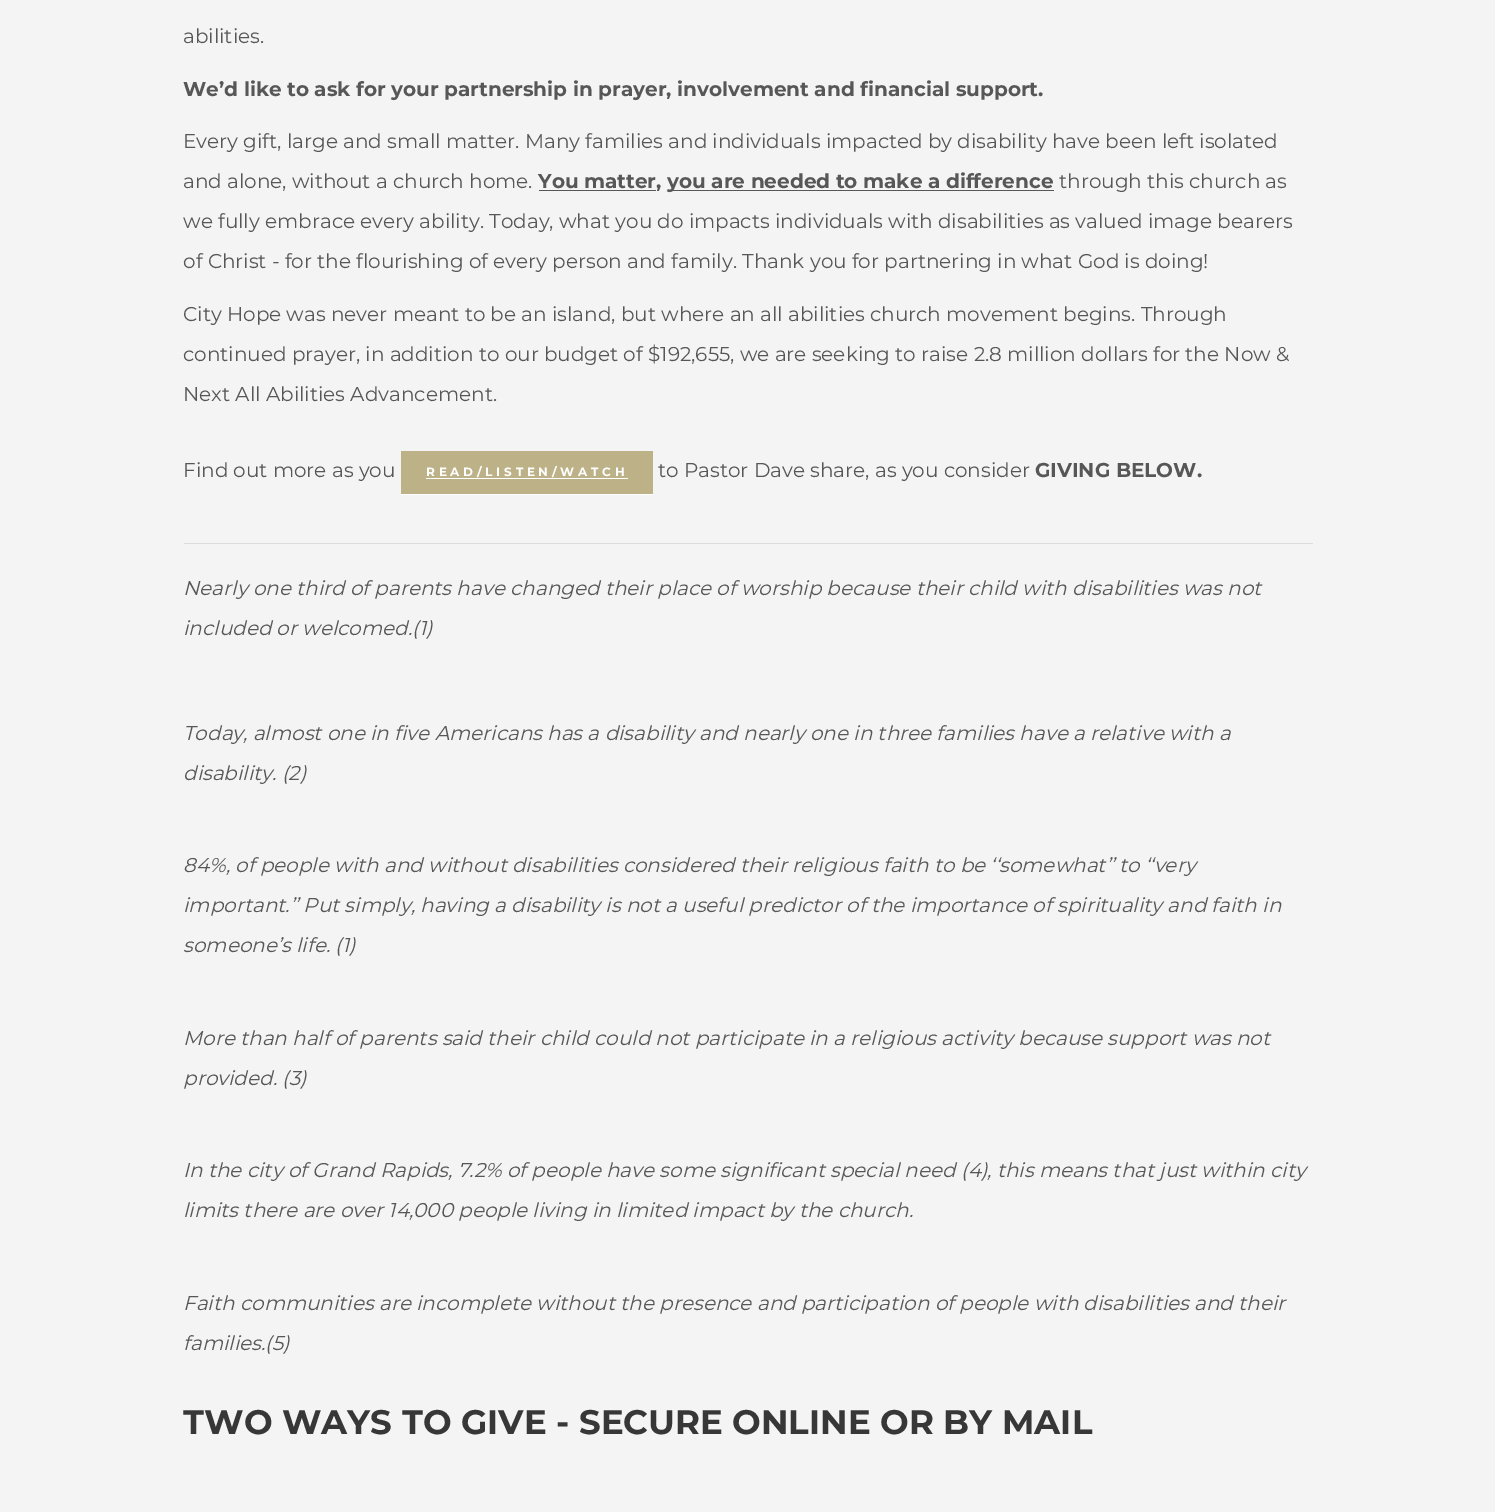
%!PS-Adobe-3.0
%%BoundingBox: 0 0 1495 1512
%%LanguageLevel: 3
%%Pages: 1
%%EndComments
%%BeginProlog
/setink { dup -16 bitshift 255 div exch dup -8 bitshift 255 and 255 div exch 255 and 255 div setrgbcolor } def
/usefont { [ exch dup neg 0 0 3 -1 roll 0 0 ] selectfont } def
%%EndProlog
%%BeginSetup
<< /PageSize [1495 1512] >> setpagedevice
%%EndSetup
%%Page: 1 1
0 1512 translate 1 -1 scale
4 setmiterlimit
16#F4F4F4 setink
0 0 1495 1512 rectfill
/Montserrat-Regular 20 usefont
16#575757 setink
183 43 moveto (abilities.) show
/Montserrat-Bold 20 usefont
183 96 moveto (We’d like to ask for your partnership in prayer, involvement and financial support.) show
/Montserrat-Regular 20 usefont
183 148 moveto (Every gift, large and small matter. Many families and individuals impacted by disability have been left isolated) show
183 188 moveto (and alone, without a church home.) show
539 190 117 1 rectfill
/Montserrat-Bold 20 usefont
538 188 moveto (You matter,) show
668 190 386 1 rectfill
667 188 moveto (you are needed to make a difference) show
/Montserrat-Regular 20 usefont
[
    [(through this church as) 1059 188]
    [(we fully embrace every ability. Today, what you do impacts individuals with disabilities as valued image bearers) 183 228]
    [(of Christ - for the flourishing of every person and family. Thank you for partnering in what God is doing!) 183 268]
    [(City Hope was never meant to be an island, but where an all abilities church movement begins. Through) 183 321]
    [(continued prayer, in addition to our budget of $192,655, we are seeking to raise 2.8 million dollars for the Now &) 183 361]
    [(Next All Abilities Advancement.) 183 401]
    [(Find out more as you) 183 477]
] { aload pop moveto show } forall
16#BDB287 setink
401 451 252 43 rectfill
/Montserrat-Bold 12 usefont
16#FFFFFF setink
426 476 moveto 3.75 0 (READ/LISTEN/WATCH) ashow
426 478 202 1 rectfill
400 494 253 1 rectfill
/Montserrat-Regular 20 usefont
16#575757 setink
658 477 moveto (to Pastor Dave share, as you consider) show
/Montserrat-Bold 20 usefont
1035 477 moveto (GIVING BELOW.) show
16#DCDCDC setink
184 543 1129 1 rectfill
/Montserrat-Italic 20 usefont
16#575757 setink
[
    [(Nearly one third of parents have changed their place of worship because their child with disabilities was not) 183 595]
    [(included or welcomed.\(1\)) 183 635]
    [(Today, almost one in five Americans has a disability and nearly one in three families have a relative with a) 183 740]
    [(disability. \(2\)) 183 780]
    [(84%, of people with and without disabilities considered their religious faith to be ‘‘somewhat’’ to ‘‘very) 183 872]
    [(important.’’ Put simply, having a disability is not a useful predictor of the importance of spirituality and faith in) 183 912]
    [(someone’s life. \(1\)) 183 952]
    [(More than half of parents said their child could not participate in a religious activity because support was not) 183 1045]
    [(provided. \(3\)) 183 1085]
    [(In the city of Grand Rapids, 7.2% of people have some significant special need \(4\), this means that just within city) 183 1177]
    [(limits there are over 14,000 people living in limited impact by the church.) 183 1217]
    [(Faith communities are incomplete without the presence and participation of people with disabilities and their) 183 1310]
    [(families.\(5\)) 183 1350]
] { aload pop moveto show } forall
/Montserrat-Bold 34 usefont
16#373737 setink
183 1434 moveto (TWO WAYS TO GIVE - SECURE ONLINE OR BY MAIL) show
showpage
%%EOF
